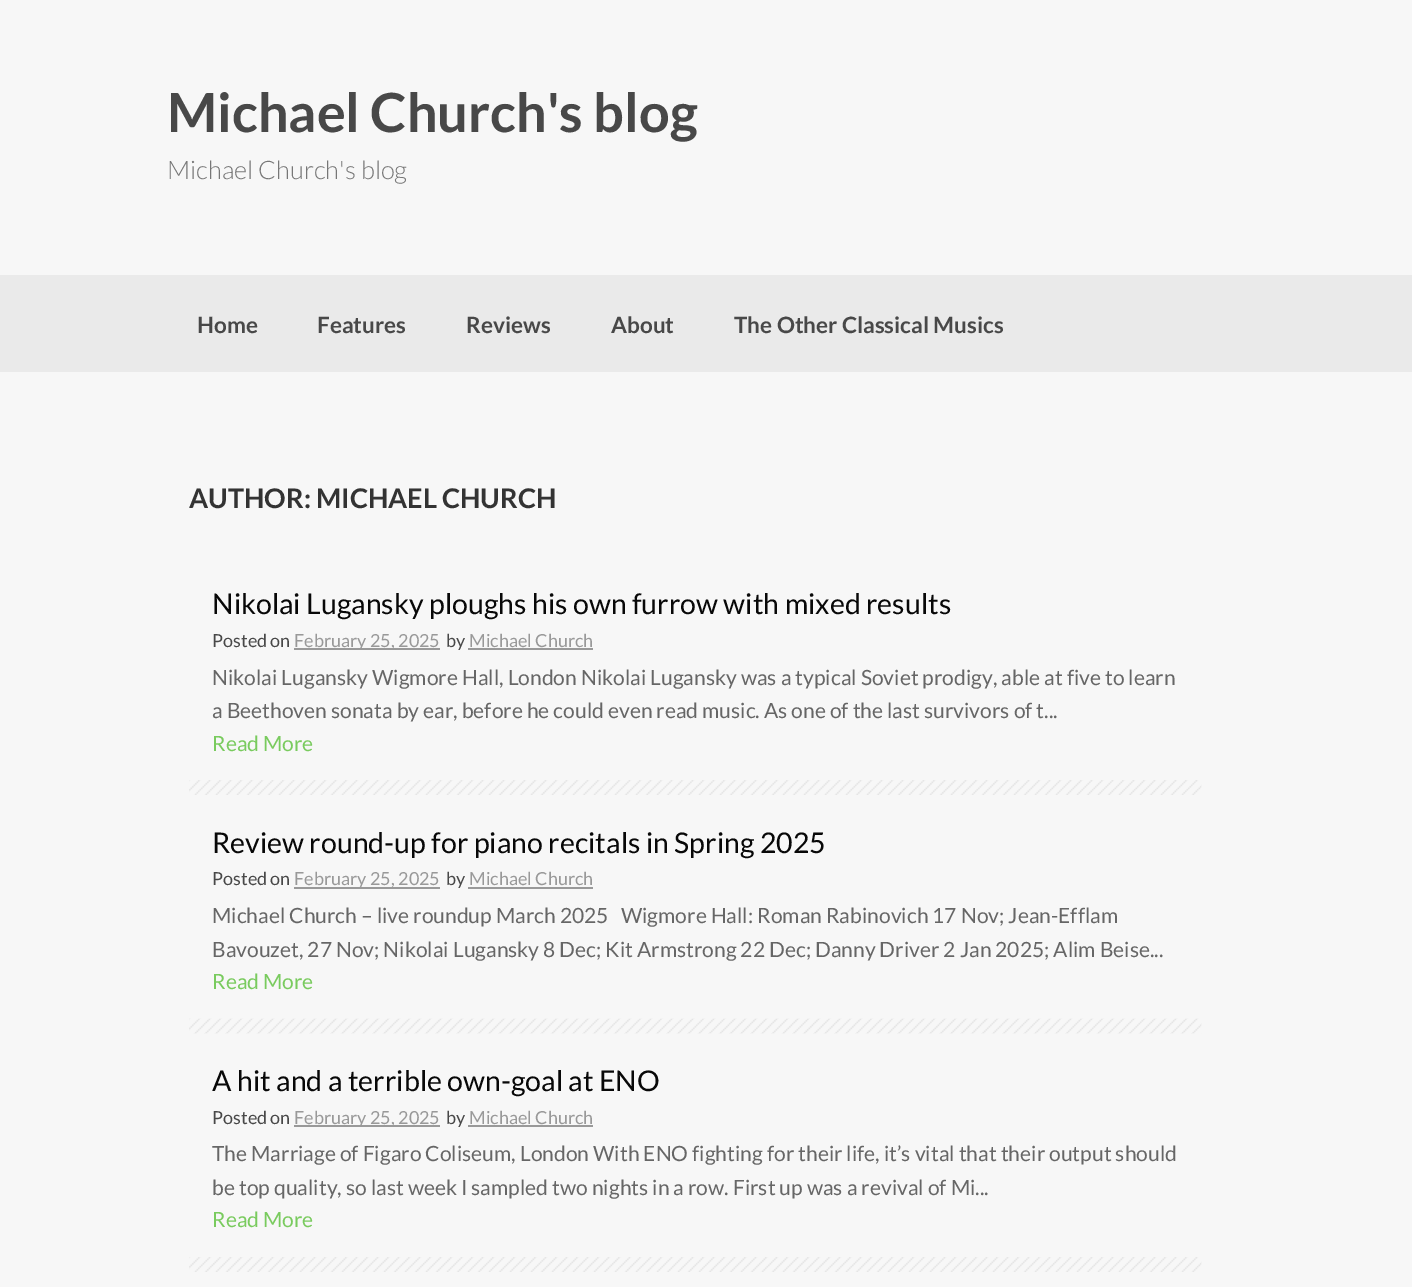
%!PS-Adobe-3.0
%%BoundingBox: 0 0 1412 1287
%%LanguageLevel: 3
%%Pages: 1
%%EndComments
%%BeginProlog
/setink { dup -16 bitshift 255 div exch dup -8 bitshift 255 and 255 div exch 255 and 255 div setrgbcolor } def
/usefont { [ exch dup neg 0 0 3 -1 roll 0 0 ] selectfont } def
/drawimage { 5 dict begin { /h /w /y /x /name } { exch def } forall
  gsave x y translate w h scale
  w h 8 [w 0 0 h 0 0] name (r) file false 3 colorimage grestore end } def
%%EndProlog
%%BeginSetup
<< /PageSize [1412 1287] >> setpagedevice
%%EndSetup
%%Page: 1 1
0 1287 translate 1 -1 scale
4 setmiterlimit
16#F7F7F7 setink
0 0 1412 1287 rectfill
/Lato-Bold 54 usefont
16#484848 setink
167 132 moveto (Michael Church's blog) show
/Lato-Light 25.5 usefont
16#777777 setink
167 179 moveto (Michael Church's blog) show
16#EAEAEA setink
0 275 1412 97 rectfill
/Lato-Bold 22.5 usefont
16#484848 setink
[
    [(Home) 197 333]
    [(Features) 317 333]
    [(Reviews) 466 333]
    [(About) 611 333]
    [(The Other Classical Musics) 734 333]
] { aload pop moveto show } forall
/Lato-Bold 27 usefont
16#333333 setink
189 508 moveto (AUTHOR: MICHAEL CHURCH) show
/Lato-Regular 28.5 usefont
16#080808 setink
212 614 moveto (Nikolai Lugansky ploughs his own furrow with mixed results) show
/Lato-Regular 18 usefont
16#484848 setink
212 647 moveto (Posted on) show
16#999999 setink
294 648 146 2 rectfill
294 647 moveto (February 25, 2025) show
16#484848 setink
446 647 moveto (by) show
16#999999 setink
468 648 125 2 rectfill
469 647 moveto (Michael Church) show
/Lato-Regular 21 usefont
16#666666 setink
212 685 moveto (Nikolai Lugansky Wigmore Hall, London Nikolai Lugansky was a typical Soviet prodigy, able at five to learn) show
212 718 moveto (a Beethoven sonata by ear, before he could even read music. As one of the last survivors of t...) show
16#79CB5E setink
212 751 moveto (Read More) show
(img1.raw) 189 780 1013 15 drawimage
/Lato-Regular 28.5 usefont
16#080808 setink
212 853 moveto (Review round-up for piano recitals in Spring 2025) show
/Lato-Regular 18 usefont
16#484848 setink
212 885 moveto (Posted on) show
16#999999 setink
294 887 146 2 rectfill
294 885 moveto (February 25, 2025) show
16#484848 setink
446 885 moveto (by) show
16#999999 setink
468 887 125 2 rectfill
469 885 moveto (Michael Church) show
/Lato-Regular 21 usefont
16#666666 setink
212 923 moveto (Michael Church – live roundup March 2025   Wigmore Hall: Roman Rabinovich 17 Nov; Jean-Efflam) show
212 957 moveto (Bavouzet, 27 Nov; Nikolai Lugansky 8 Dec; Kit Armstrong 22 Dec; Danny Driver 2 Jan 2025; Alim Beise...) show
16#79CB5E setink
212 989 moveto (Read More) show
(img2.raw) 189 1018 1013 16 drawimage
/Lato-Regular 28.5 usefont
16#080808 setink
212 1091 moveto (A hit and a terrible own-goal at ENO) show
/Lato-Regular 18 usefont
16#484848 setink
212 1124 moveto (Posted on) show
16#999999 setink
294 1125 146 2 rectfill
294 1124 moveto (February 25, 2025) show
16#484848 setink
446 1124 moveto (by) show
16#999999 setink
468 1125 125 2 rectfill
469 1124 moveto (Michael Church) show
/Lato-Regular 21 usefont
16#666666 setink
212 1161 moveto (The Marriage of Figaro Coliseum, London With ENO fighting for their life, it’s vital that their output should) show
212 1195 moveto (be top quality, so last week I sampled two nights in a row. First up was a revival of Mi...) show
16#79CB5E setink
212 1227 moveto (Read More) show
(img1.raw) 189 1257 1013 15 drawimage
showpage
%%EOF
